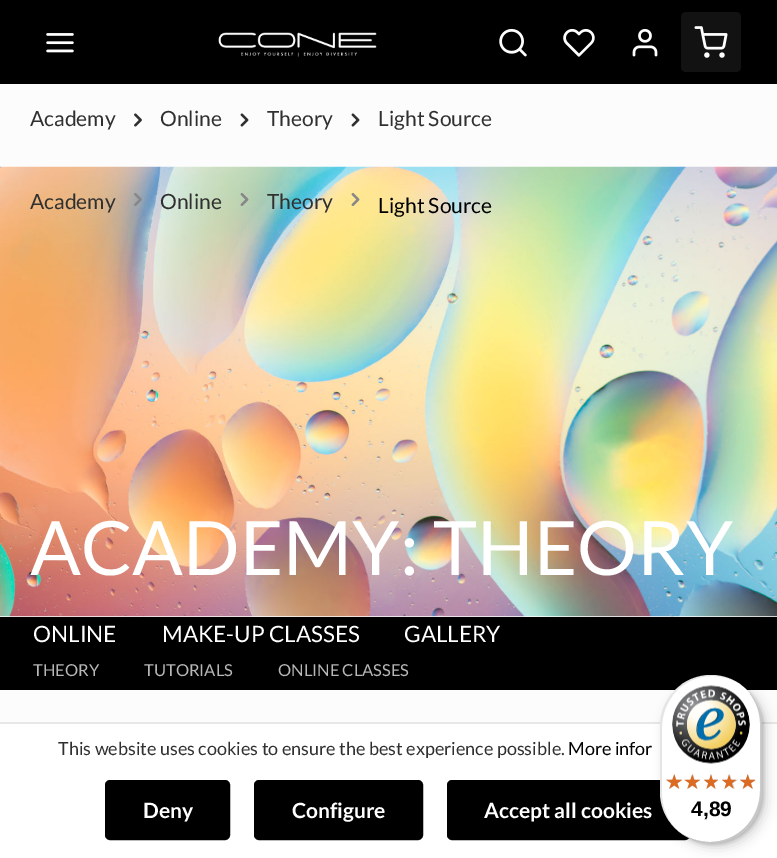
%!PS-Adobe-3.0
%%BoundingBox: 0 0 777 858
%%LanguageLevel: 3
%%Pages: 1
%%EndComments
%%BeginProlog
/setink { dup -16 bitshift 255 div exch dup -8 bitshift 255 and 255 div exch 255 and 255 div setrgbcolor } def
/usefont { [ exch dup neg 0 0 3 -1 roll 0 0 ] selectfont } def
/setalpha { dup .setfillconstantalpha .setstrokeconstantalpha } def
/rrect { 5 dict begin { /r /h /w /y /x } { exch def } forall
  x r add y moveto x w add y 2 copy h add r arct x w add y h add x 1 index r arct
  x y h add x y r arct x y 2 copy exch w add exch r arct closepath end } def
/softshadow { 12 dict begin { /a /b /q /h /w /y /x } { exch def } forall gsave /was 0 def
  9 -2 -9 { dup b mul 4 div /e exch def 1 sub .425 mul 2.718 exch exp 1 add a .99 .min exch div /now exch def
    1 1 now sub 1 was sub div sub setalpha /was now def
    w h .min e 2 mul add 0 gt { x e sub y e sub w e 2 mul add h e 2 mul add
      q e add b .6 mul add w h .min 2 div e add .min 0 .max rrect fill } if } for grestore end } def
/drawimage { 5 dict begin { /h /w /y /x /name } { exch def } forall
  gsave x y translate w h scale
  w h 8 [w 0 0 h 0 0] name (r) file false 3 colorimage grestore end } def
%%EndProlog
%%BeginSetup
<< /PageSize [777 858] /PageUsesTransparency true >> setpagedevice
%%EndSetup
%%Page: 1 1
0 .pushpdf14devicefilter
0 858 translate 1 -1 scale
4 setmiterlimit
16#000000 setink
0 0 777 858 rectfill
(img1.raw) 46 33 28 20 drawimage
(img2.raw) 218 32 159 25 drawimage
(img3.raw) 499 28 28 29 drawimage
(img4.raw) 563 28 32 29 drawimage
(img5.raw) 632 29 26 28 drawimage
16#121212 setink
681 12 60 60 5 rrect fill
(img6.raw) 694 26 34 32 drawimage
16#FCFCFC setink
0 84 777 638 rectfill
/Lato-Regular 21 usefont
16#303030 setink
30 126 moveto (Academy) show
(img7.raw) 134 113 8 14 drawimage
160 126 moveto (Online) show
(img8.raw) 240 113 9 14 drawimage
267 126 moveto (Theory) show
(img8.raw) 351 113 9 14 drawimage
378 126 moveto (Light Source) show
16#FFFFFF setink
0 616 777 1 rectfill
(img9.raw) 0 166 777 451 drawimage
16#303030 setink
30 209 moveto (Academy) show
(img10.raw) 134 193 8 13 drawimage
160 209 moveto (Online) show
(img11.raw) 240 193 9 13 drawimage
267 209 moveto (Theory) show
(img12.raw) 351 193 9 13 drawimage
16#000000 setink
378 213 moveto (Light Source) show
/Lato-Regular 75 usefont
16#FFFFFF setink
30 575 moveto (ACADEMY: THEORY) show
16#000000 setink
0 617 777 73 rectfill
/Lato-Regular 22.5 usefont
16#FFFFFF setink
[
    [(ONLINE) 33 642]
    [(MAKE-UP CLASSES) 162 642]
    [(GALLERY) 404 642]
] { aload pop moveto show } forall
/Lato-Regular 16.5 usefont
16#B8B8B8 setink
[
    [(THEORY) 33 676]
    [(TUTORIALS) 144 676]
    [(ONLINE CLASSES) 278 676]
] { aload pop moveto show } forall
16#FFFFFF setink
0 724 777 134 rectfill
16#E8E7E8 setink
0 722 777 2 rectfill
/Lato-Regular 18 usefont
16#303030 setink
58 755 moveto (This website uses cookies to ensure the best experience possible.) show
16#000000 setink
568 755 moveto (More infor) show
106 781 123 58 4 rrect gsave fill grestore
2 setlinewidth
stroke
/Lato-Bold 21 usefont
16#FFFFFF setink
143 818 moveto (Deny) show
16#000000 setink
255 781 167 58 4 rrect gsave fill grestore
stroke
16#FFFFFF setink
292 818 moveto (Configure) show
16#000000 setink
448 781 241 58 4 rrect gsave fill grestore
stroke
16#FFFFFF setink
484 818 moveto (Accept all cookies) show
16#000000 setink
665 680 102 168 51 6 0.15 softshadow
662 677 102 168 51 1.5 0.15 softshadow
16#FFFFFF setink
660 675 102 168 51 rrect fill
0.1 setalpha
16#000000 setink
712 676 moveto 722 676 732 679 740 684 curveto 732 678 722 675 711 675 curveto 683 675 660 698 660 726 curveto 660 792 lineto 660 807 667 821 677 830 curveto 668 821 662 808 662 794 curveto 662 728 lineto 662 699 684 676 712 676 curveto closepath fill
0.2 setalpha
682 834 moveto 690 840 700 843 711 843 curveto 739 843 762 820 762 792 curveto 762 726 lineto 762 711 755 697 745 688 curveto 754 697 760 710 760 724 curveto 760 790 lineto 760 819 738 842 710 842 curveto 700 842 690 839 682 834 curveto closepath fill
16#323232 setink
672 825 moveto 682 836 696 843 711 843 curveto 739 843 762 820 762 792 curveto 762 726 lineto 762 711 755 697 744 687 curveto 755 697 761 710 761 725 curveto 761 791 lineto 761 819 738 842 710 842 curveto 695 842 682 836 672 825 curveto closepath fill
0.3 setalpha
16#FFFFFF setink
672 825 moveto 682 836 696 843 711 843 curveto 739 843 762 820 762 792 curveto 762 726 lineto 762 711 755 697 744 687 curveto 755 697 761 710 761 725 curveto 761 791 lineto 761 819 738 842 710 842 curveto 695 842 682 836 672 825 curveto closepath fill
1 setalpha
(img13.raw) 672 685 78 79 drawimage
(img14.raw) 666 774 16 15 drawimage
(img15.raw) 686 774 14 15 drawimage
(img16.raw) 704 774 14 15 drawimage
(img17.raw) 722 774 16 15 drawimage
(img18.raw) 740 774 16 15 drawimage
(img19.raw) 666 774 16 15 drawimage
(img20.raw) 684 774 16 15 drawimage
(img21.raw) 704 774 14 15 drawimage
(img22.raw) 722 774 14 15 drawimage
(img23.raw) 740 774 15 15 drawimage
/LiberationSans-Bold 21 usefont
16#000000 setink
691 816 moveto (4,89) show
.poppdf14devicefilter showpage
%%EOF
